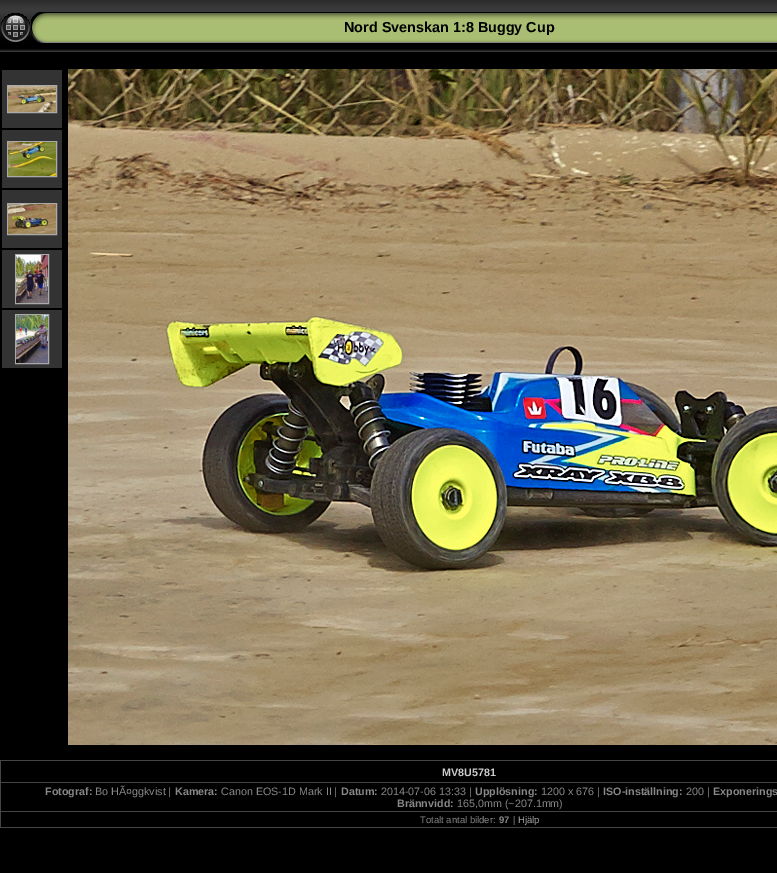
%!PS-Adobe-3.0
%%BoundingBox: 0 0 777 873
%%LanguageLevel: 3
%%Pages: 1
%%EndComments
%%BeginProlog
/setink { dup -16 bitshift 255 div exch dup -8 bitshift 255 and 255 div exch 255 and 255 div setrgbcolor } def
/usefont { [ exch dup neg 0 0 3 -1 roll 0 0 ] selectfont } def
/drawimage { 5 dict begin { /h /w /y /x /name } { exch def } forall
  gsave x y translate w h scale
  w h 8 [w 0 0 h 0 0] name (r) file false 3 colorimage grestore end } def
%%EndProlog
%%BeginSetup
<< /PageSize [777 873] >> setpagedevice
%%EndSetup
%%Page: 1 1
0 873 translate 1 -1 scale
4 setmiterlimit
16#000000 setink
0 0 777 873 rectfill
(img1.raw) 0 0 777 52 drawimage
(img2.raw) 1 13 29 29 drawimage
(img3.raw) 31 12 20 31 drawimage
(img4.raw) 51 12 726 31 drawimage
/LiberationSans-Bold 14.4 usefont
344 32 moveto (Nord Svenskan 1:8 Buggy Cup) show
16#333333 setink
2 70 60 58 rectfill
16#AAAAAA setink
7.5 85.5 49 27 rectstroke
(img5.raw) 8 86 48 26 drawimage
16#333333 setink
2 130 60 58 rectfill
16#AAAAAA setink
7.5 141.5 49 35 rectstroke
(img6.raw) 8 142 48 34 drawimage
16#333333 setink
2 190 60 58 rectfill
16#AAAAAA setink
7.5 203.5 49 31 rectstroke
(img7.raw) 8 204 48 30 drawimage
16#333333 setink
2 250 60 58 rectfill
16#AAAAAA setink
15.5 254.5 33 49 rectstroke
(img8.raw) 16 255 32 48 drawimage
16#333333 setink
2 310 60 58 rectfill
16#AAAAAA setink
15.5 314.5 33 49 rectstroke
(img9.raw) 16 315 32 48 drawimage
(img10.raw) 68 69 709 676 drawimage
[
    [0 760 777 1 16#444444]
    [0 827 777 1 16#444444]
    [0 760 1 68 16#444444]
] { aload pop setink rectfill } forall
/LiberationSans-Bold 10.75 usefont
16#CCCCCC setink
442 776 moveto (MV8U5781) show
16#444444 setink
0 782 777 1 rectfill
16#888888 setink
45 795 moveto (Fotograf:) show
/LiberationSans-Regular 10.75 usefont
95 795 moveto (Bo HÃ¤ggkvist |) show
/LiberationSans-Bold 10.75 usefont
175 795 moveto (Kamera:) show
/LiberationSans-Regular 10.75 usefont
221 795 moveto (Canon EOS-1D Mark II |) show
/LiberationSans-Bold 10.75 usefont
341 795 moveto (Datum:) show
/LiberationSans-Regular 10.75 usefont
381 795 moveto (2014-07-06 13:33 |) show
/LiberationSans-Bold 10.75 usefont
475 795 moveto (Upplösning:) show
/LiberationSans-Regular 10.75 usefont
541 795 moveto (1200 x 676 |) show
/LiberationSans-Bold 10.75 usefont
603 795 moveto (ISO-inställning:) show
/LiberationSans-Regular 10.75 usefont
686 795 moveto (200 |) show
/LiberationSans-Bold 10.75 usefont
713 795 moveto (Exponerings) show
397 807 moveto (Brännvidd:) show
/LiberationSans-Regular 10.75 usefont
457 807 moveto (165,0mm \(~207.1mm\)) show
16#444444 setink
0 811 777 1 rectfill
/LiberationSans-Regular 9.5 usefont
16#888888 setink
420 823 moveto (Totalt antal bilder:) show
/LiberationSans-Bold 9.5 usefont
499 823 moveto (97) show
/LiberationSans-Regular 9.5 usefont
513 823 moveto (|) show
16#AAAAAA setink
518 823 moveto (Hjälp) show
showpage
%%EOF
